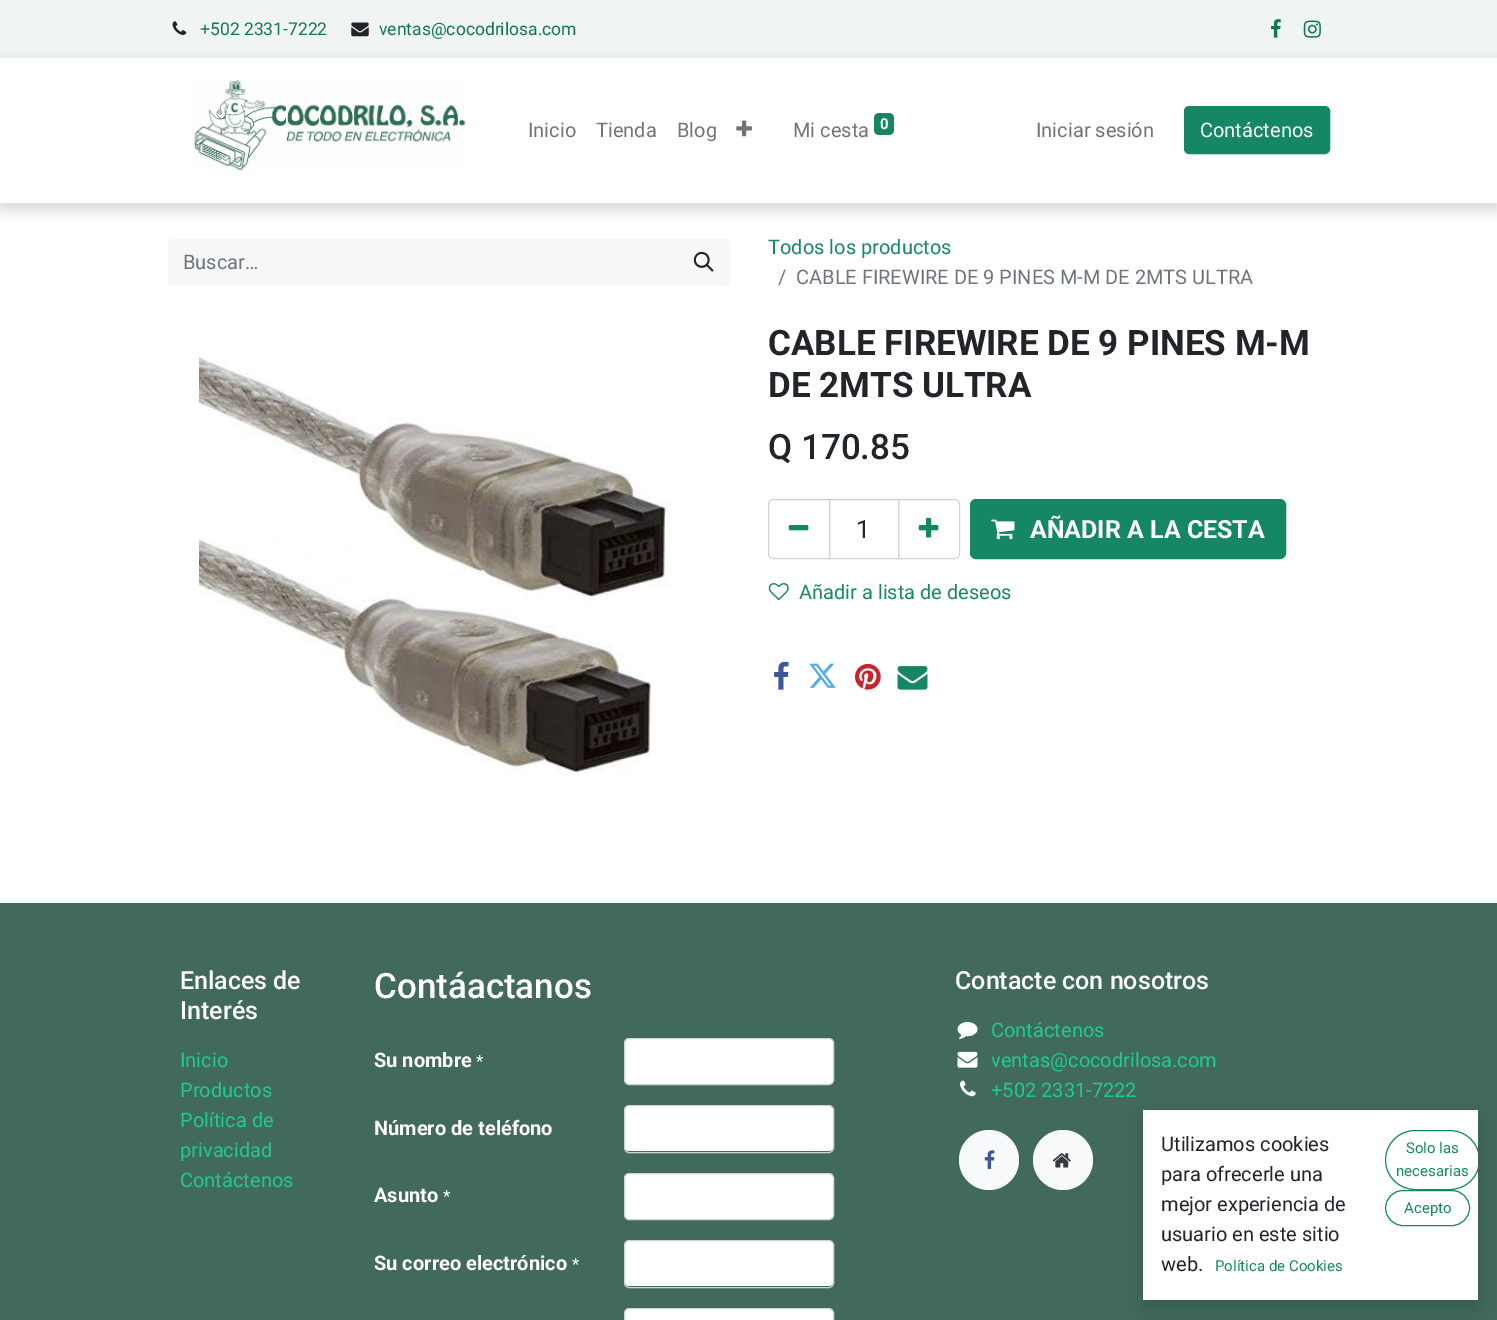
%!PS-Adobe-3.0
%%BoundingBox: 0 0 1497 1320
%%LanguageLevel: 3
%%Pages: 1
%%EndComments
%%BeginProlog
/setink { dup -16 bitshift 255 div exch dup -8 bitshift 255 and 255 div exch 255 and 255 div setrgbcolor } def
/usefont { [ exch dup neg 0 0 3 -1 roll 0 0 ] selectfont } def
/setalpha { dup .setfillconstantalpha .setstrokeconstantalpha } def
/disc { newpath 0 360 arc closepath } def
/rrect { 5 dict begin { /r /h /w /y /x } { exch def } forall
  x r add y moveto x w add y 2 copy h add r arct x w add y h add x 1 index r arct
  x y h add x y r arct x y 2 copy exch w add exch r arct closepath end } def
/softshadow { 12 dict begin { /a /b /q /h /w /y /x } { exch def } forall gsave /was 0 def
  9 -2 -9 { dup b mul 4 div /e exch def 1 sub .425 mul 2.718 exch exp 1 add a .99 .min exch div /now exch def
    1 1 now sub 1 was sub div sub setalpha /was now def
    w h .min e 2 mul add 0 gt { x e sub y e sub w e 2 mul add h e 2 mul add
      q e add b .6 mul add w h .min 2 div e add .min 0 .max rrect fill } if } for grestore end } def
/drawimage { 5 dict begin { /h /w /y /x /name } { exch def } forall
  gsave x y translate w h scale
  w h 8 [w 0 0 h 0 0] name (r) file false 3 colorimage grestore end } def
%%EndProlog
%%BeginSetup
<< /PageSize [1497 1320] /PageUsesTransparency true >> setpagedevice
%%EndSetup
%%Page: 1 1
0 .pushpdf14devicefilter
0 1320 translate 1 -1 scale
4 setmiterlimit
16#FFFFFF setink
0 0 1497 1320 rectfill
16#F0F5F4 setink
0 0 1497 58 rectfill
(img1.raw) 172 21 15 14 drawimage
/Roboto-Regular 17.5 usefont
16#127558 setink
200 35 moveto (+502 2331-7222) show
(img2.raw) 351 22 18 15 drawimage
379 35 moveto (ventas@cocodrilosa.com) show
(img3.raw) 1271 19 10 19 drawimage
(img4.raw) 1303 20 18 18 drawimage
16#000000 setink
0 65 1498 145 0 7.5 0.15 softshadow
16#FFFFFF setink
0 58 1497 145 rectfill
(img5.raw) 194 79 272 92 drawimage
/Roboto-Regular 20 usefont
16#737373 setink
[
    [(Inicio) 528 137]
    [(Tienda) 596 137]
    [(Blog) 677 137]
] { aload pop moveto show } forall
(img6.raw) 736 120 16 17 drawimage
793 137 moveto (Mi cesta) show
16#158765 setink
874 113 20 22 5 rrect fill
/Roboto-Bold 15 usefont
16#FFFFFF setink
880 129 moveto (0) show
/Roboto-Regular 20 usefont
16#737373 setink
1036 137 moveto (Iniciar sesión) show
16#158765 setink
1184.5 106.5 145 47 4.5 rrect gsave fill grestore
stroke
16#FFFFFF setink
1200 137 moveto (Contáctenos) show
16#F7F7F7 setink
173 239 moveto 679 239 lineto 679 286 lineto 173 286 lineto 170 286 168 284 168 281 curveto 168 244 lineto 168 241 170 239 173 239 curveto closepath fill
16#6C757D setink
183 269 moveto (Buscar…) show
16#F7F7F7 setink
678 239 moveto 725 239 lineto 728 239 730 241 730 244 curveto 730 281 lineto 730 284 728 286 725 286 curveto 678 286 lineto closepath fill
(img7.raw) 693 251 21 21 drawimage
16#158765 setink
768 254 moveto (Todos los productos) show
16#6C757D setink
778 284 moveto (/) show
796 284 moveto (CABLE FIREWIRE DE 9 PINES M-M DE 2MTS ULTRA) show
(img8.raw) 199 351 471 423 drawimage
/Roboto-Bold 35 usefont
16#212529 setink
768 355 moveto (CABLE FIREWIRE DE 9 PINES M-M) show
768 397 moveto (DE 2MTS ULTRA) show
/Roboto-Medium 35 usefont
768 459 moveto (Q 170.85) show
16#CED4DA setink
829.5 499.5 69 59 rectstroke
773 499.5 moveto 829.5 499.5 lineto 829.5 558.5 lineto 773 558.5 lineto 770.5 558.5 768.5 556.5 768.5 554 curveto 768.5 504 lineto 768.5 501.5 770.5 499.5 773 499.5 curveto closepath stroke
(img9.raw) 788 525 21 6 drawimage
/Roboto-Regular 25 usefont
16#212529 setink
856 538 moveto (1) show
16#CED4DA setink
898.5 499.5 moveto 955 499.5 lineto 957.5 499.5 959.5 501.5 959.5 504 curveto 959.5 554 lineto 959.5 556.5 957.5 558.5 955 558.5 curveto 898.5 558.5 lineto closepath stroke
(img10.raw) 918 517 21 21 drawimage
16#158765 setink
970.5 499.5 315 59 5.5 rrect gsave fill grestore
stroke
(img11.raw) 991 519 24 21 drawimage
/Roboto-Bold 25 usefont
16#FFFFFF setink
1030 538 moveto (AÑADIR A LA CESTA) show
(img12.raw) 768 583 21 18 drawimage
/Roboto-Regular 20 usefont
16#158765 setink
799 599 moveto (Añadir a lista de deseos) show
(img13.raw) 774 661 15 29 drawimage
(img14.raw) 809 663 27 25 drawimage
(img15.raw) 855 663 26 27 drawimage
(img16.raw) 897 666 31 24 drawimage
16#426A5A setink
0 903 1497 417 rectfill
/Roboto-Medium 25 usefont
16#FFFFFF setink
180 989 moveto (Enlaces de) show
180 1019 moveto (Interés) show
/Roboto-Regular 20 usefont
16#1FC997 setink
[
    [(Inicio) 180 1067]
    [(Productos) 180 1097]
    [(Política de) 180 1127]
    [(privacidad) 180 1157]
    [(Contáctenos) 180 1187]
] { aload pop moveto show } forall
/Roboto-Medium 35 usefont
16#FFFFFF setink
374 998 moveto (Contáactanos) show
/Roboto-Bold 20 usefont
374 1067 moveto (Su nombre) show
/Roboto-Regular 17 usefont
476 1067 moveto (*) show
624.5 1038.5 209 46 4.5 rrect gsave fill grestore
16#CED4DA setink
stroke
/Roboto-Bold 20 usefont
16#FFFFFF setink
374 1135 moveto (Número de teléfono) show
625 1106 208 45 4 rrect fill
16#CED4DA setink
624.5 1105.5 209 47 4.5 rrect stroke
16#FFFFFF setink
374 1202 moveto (Asunto) show
/Roboto-Regular 17 usefont
443 1202 moveto (*) show
624.5 1173.5 209 46 4.5 rrect gsave fill grestore
16#CED4DA setink
stroke
/Roboto-Bold 20 usefont
16#FFFFFF setink
374 1270 moveto (Su correo electrónico) show
/Roboto-Regular 17 usefont
572 1270 moveto (*) show
625 1241 208 45 4 rrect fill
16#CED4DA setink
624.5 1240.5 209 47 4.5 rrect stroke
16#FFFFFF setink
629 1309 moveto 829 1309 lineto 831 1309 833 1311 833 1313 curveto 833 1320 lineto 625 1320 lineto 625 1313 lineto 625 1311 627 1309 629 1309 curveto closepath fill
16#CED4DA setink
624.5 1308.5 209 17 4.5 rrect stroke
/Roboto-Medium 25 usefont
16#FFFFFF setink
955 989 moveto (Contacte con nosotros) show
(img17.raw) 957 1022 21 18 drawimage
/Roboto-Regular 20 usefont
16#1FC997 setink
991 1037 moveto (Contáctenos) show
(img18.raw) 957 1051 21 17 drawimage
991 1067 moveto (ventas@cocodrilosa.com) show
(img19.raw) 960 1080 16 17 drawimage
991 1097 moveto (+502 2331-7222) show
16#F8F9FA setink
989 1160 30 disc fill
(img20.raw) 984 1150 11 19 drawimage
1063 1160 30 disc fill
(img21.raw) 1052 1153 19 15 drawimage
16#000000 setink
1143 1120 335 190 0 10 0.15 softshadow
16#FFFFFF setink
1143 1110 335 190 rectfill
16#212529 setink
[
    [(Utilizamos cookies) 1161 1151]
    [(para ofrecerle una) 1161 1181]
    [(mejor experiencia de) 1161 1211]
    [(usuario en este sitio) 1161 1241]
    [(web.) 1161 1271]
] { aload pop moveto show } forall
/Roboto-Regular 15 usefont
16#158765 setink
1215 1271 moveto (Política de Cookies) show
gsave
1143 1110 335 190 rectclip
1385.5 1130.5 94 59 29.5 rrect stroke
grestore
1406 1153 moveto (Solo las) show
1396 1176 moveto (necesarias) show
1385.5 1190.5 84 35 17.5 rrect stroke
1404 1213 moveto (Acepto) show
.poppdf14devicefilter showpage
%%EOF
